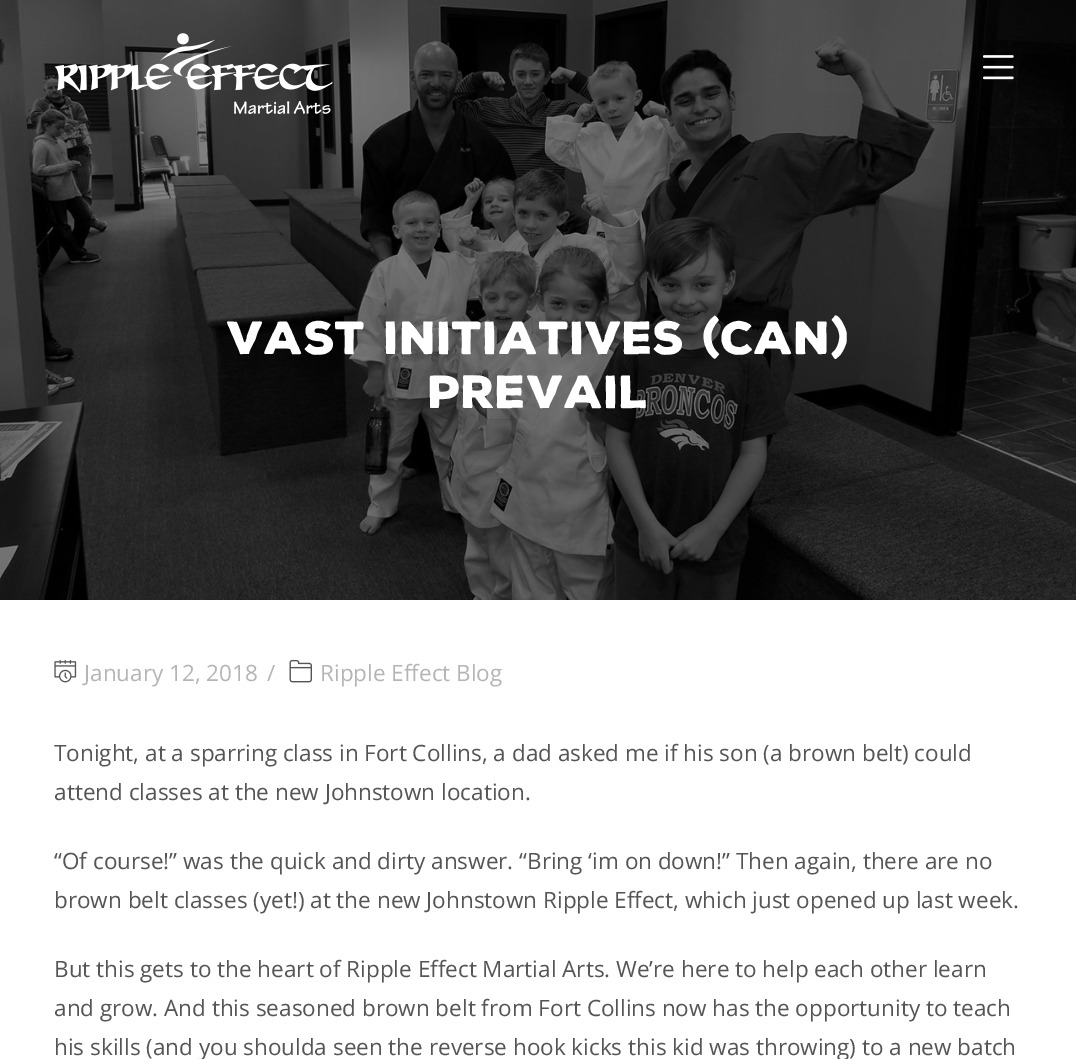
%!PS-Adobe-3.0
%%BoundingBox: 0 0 1076 1059
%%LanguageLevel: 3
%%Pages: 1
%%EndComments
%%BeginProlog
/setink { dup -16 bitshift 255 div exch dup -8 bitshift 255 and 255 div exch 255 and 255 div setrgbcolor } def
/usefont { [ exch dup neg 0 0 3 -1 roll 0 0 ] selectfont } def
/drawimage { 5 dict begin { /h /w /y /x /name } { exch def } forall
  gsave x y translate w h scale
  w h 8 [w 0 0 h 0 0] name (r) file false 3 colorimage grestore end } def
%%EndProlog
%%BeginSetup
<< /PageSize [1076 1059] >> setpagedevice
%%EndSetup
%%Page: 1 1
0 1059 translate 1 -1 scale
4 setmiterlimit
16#FFFFFF setink
0 0 1076 1059 rectfill
(img3.raw) 0 0 1076 600 drawimage
(img1.raw) 54 33 279 81 drawimage
(img2.raw) 983 55 31 25 drawimage
/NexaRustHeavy-Regular 45 usefont
227 354 moveto (Vast Initiatives \(Can\)) show
428 408 moveto (Prevail) show
(img4.raw) 54 660 23 23 drawimage
/OpenSans-Regular 22.5 usefont
16#B5B5B5 setink
84 681 moveto (January 12, 2018) show
267 681 moveto (/) show
(img5.raw) 289 659 23 24 drawimage
320 681 moveto (Ripple Effect Blog) show
16#555555 setink
[
    [(Tonight, at a sparring class in Fort Collins, a dad asked me if his son \(a brown belt\) could) 54 761]
    [(attend classes at the new Johnstown location.) 54 800]
    [(“Of course!” was the quick and dirty answer. “Bring ‘im on down!” Then again, there are no) 54 869]
    [(brown belt classes \(yet!\) at the new Johnstown Ripple Effect, which just opened up last week.) 54 908]
    [(But this gets to the heart of Ripple Effect Martial Arts. We’re here to help each other learn) 54 977]
    [(and grow. And this seasoned brown belt from Fort Collins now has the opportunity to teach) 54 1016]
    [(his skills \(and you shoulda seen the reverse hook kicks this kid was throwing\) to a new batch) 54 1055]
] { aload pop moveto show } forall
showpage
%%EOF
